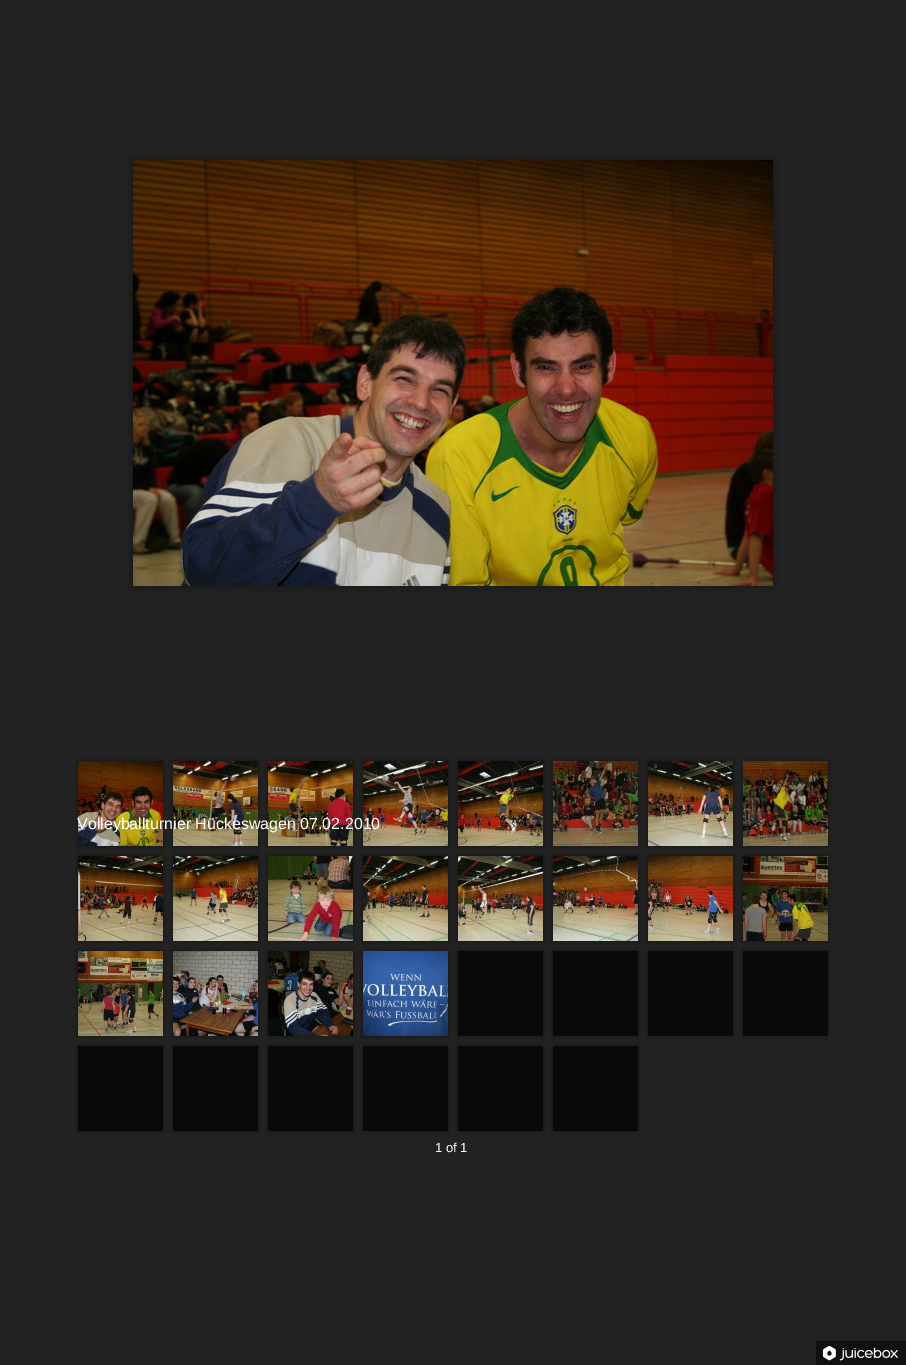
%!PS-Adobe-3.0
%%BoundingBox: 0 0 906 1365
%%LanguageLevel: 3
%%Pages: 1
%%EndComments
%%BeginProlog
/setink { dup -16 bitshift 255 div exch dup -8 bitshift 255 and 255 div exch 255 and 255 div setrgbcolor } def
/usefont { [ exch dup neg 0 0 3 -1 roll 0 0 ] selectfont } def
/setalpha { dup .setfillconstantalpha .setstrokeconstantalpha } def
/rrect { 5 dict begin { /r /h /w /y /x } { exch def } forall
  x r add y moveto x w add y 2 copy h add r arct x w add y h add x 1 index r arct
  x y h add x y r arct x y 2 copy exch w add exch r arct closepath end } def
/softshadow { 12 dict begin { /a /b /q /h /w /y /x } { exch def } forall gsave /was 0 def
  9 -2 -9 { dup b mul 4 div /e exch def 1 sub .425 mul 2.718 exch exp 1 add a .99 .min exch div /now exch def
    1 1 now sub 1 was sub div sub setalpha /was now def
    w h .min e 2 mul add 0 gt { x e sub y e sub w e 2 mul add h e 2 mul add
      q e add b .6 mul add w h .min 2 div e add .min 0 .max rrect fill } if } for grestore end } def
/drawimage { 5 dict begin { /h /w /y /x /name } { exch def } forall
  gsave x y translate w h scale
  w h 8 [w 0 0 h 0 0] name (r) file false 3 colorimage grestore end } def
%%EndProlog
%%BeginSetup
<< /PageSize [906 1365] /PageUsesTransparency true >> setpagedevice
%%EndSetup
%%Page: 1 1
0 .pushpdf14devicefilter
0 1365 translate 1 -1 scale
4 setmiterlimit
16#222222 setink
0 0 906 1365 rectfill
16#000000 setink
133 160 640 426 0 5 0.4 softshadow
(img1.raw) 133 160 640 426 drawimage
78 761 85 85 0 2.5 0.4 softshadow
(img2.raw) 78 761 85 85 drawimage
173 761 85 85 0 2.5 0.4 softshadow
(img3.raw) 173 761 85 85 drawimage
268 761 85 85 0 2.5 0.4 softshadow
(img4.raw) 268 761 85 85 drawimage
363 761 85 85 0 2.5 0.4 softshadow
(img5.raw) 363 761 85 85 drawimage
458 761 85 85 0 2.5 0.4 softshadow
(img6.raw) 458 761 85 85 drawimage
553 761 85 85 0 2.5 0.4 softshadow
(img7.raw) 553 761 85 85 drawimage
648 761 85 85 0 2.5 0.4 softshadow
(img8.raw) 648 761 85 85 drawimage
743 761 85 85 0 2.5 0.4 softshadow
(img9.raw) 743 761 85 85 drawimage
78 856 85 85 0 2.5 0.4 softshadow
(img10.raw) 78 856 85 85 drawimage
173 856 85 85 0 2.5 0.4 softshadow
(img11.raw) 173 856 85 85 drawimage
268 856 85 85 0 2.5 0.4 softshadow
(img12.raw) 268 856 85 85 drawimage
363 856 85 85 0 2.5 0.4 softshadow
(img13.raw) 363 856 85 85 drawimage
458 856 85 85 0 2.5 0.4 softshadow
(img14.raw) 458 856 85 85 drawimage
553 856 85 85 0 2.5 0.4 softshadow
(img15.raw) 553 856 85 85 drawimage
648 856 85 85 0 2.5 0.4 softshadow
(img16.raw) 648 856 85 85 drawimage
743 856 85 85 0 2.5 0.4 softshadow
(img17.raw) 743 856 85 85 drawimage
78 951 85 85 0 2.5 0.4 softshadow
(img18.raw) 78 951 85 85 drawimage
173 951 85 85 0 2.5 0.4 softshadow
(img19.raw) 173 951 85 85 drawimage
268 951 85 85 0 2.5 0.4 softshadow
(img20.raw) 268 951 85 85 drawimage
363 951 85 85 0 2.5 0.4 softshadow
(img21.raw) 363 951 85 85 drawimage
458 951 85 85 0 2.5 0.4 softshadow
16#090909 setink
458 951 85 85 rectfill
16#000000 setink
553 951 85 85 0 2.5 0.4 softshadow
16#090909 setink
553 951 85 85 rectfill
16#000000 setink
648 951 85 85 0 2.5 0.4 softshadow
16#090909 setink
648 951 85 85 rectfill
16#000000 setink
743 951 85 85 0 2.5 0.4 softshadow
16#090909 setink
743 951 85 85 rectfill
16#000000 setink
78 1046 85 85 0 2.5 0.4 softshadow
16#090909 setink
78 1046 85 85 rectfill
16#000000 setink
173 1046 85 85 0 2.5 0.4 softshadow
16#090909 setink
173 1046 85 85 rectfill
16#000000 setink
268 1046 85 85 0 2.5 0.4 softshadow
16#090909 setink
268 1046 85 85 rectfill
16#000000 setink
363 1046 85 85 0 2.5 0.4 softshadow
16#090909 setink
363 1046 85 85 rectfill
16#000000 setink
458 1046 85 85 0 2.5 0.4 softshadow
16#090909 setink
458 1046 85 85 rectfill
16#000000 setink
553 1046 85 85 0 2.5 0.4 softshadow
16#090909 setink
553 1046 85 85 rectfill
/LiberationSans-Regular 16 usefont
16#FFFFFF setink
77 829 moveto (Volleyballturnier Hückeswagen 07.02.2010) show
/LiberationSans-Regular 13 usefont
435 1152 moveto (1 of 1) show
(img22.raw) 816 1341 90 24 drawimage
.poppdf14devicefilter showpage
%%EOF
